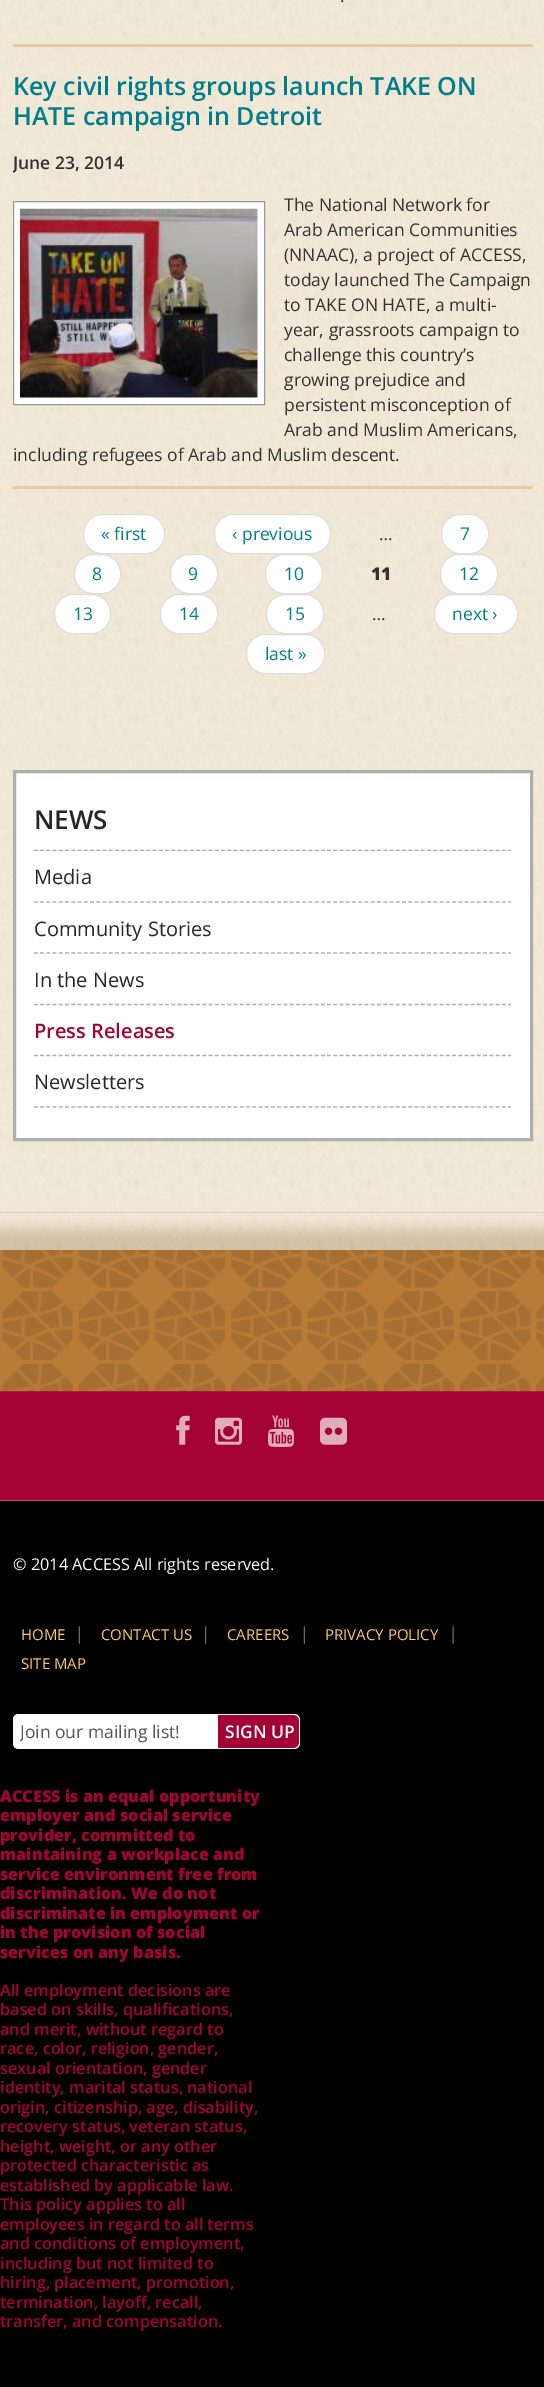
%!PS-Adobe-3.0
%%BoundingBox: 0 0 544 2387
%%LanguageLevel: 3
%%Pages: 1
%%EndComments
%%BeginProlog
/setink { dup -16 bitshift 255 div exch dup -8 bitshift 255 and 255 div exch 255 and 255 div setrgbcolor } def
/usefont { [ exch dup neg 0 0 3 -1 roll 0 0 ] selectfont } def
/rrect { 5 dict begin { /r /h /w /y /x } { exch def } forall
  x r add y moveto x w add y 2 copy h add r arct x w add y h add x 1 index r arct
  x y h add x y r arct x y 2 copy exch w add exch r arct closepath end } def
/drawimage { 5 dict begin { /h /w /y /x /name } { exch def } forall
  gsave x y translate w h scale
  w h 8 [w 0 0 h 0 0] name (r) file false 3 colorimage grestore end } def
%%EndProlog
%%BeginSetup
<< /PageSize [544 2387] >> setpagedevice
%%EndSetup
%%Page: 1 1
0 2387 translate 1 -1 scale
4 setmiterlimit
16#FFFFFF setink
0 0 544 2387 rectfill
(img1.raw) 0 0 544 1213 drawimage
16#E9C8A5 setink
13 44 520 3 rectfill
/OpenSans-Regular 17.5 usefont
16#333333 setink
340 2 moveto (.) show
16#E9C8A5 setink
13 486 520 3 rectfill
/OpenSans-SemiBold 25 usefont
16#007E89 setink
13 95 moveto (Key civil rights groups launch TAKE ON) show
13 125 moveto (HATE campaign in Detroit) show
gsave
13 71 520 415 rectclip
/OpenSans-SemiBold 17.5 usefont
16#333333 setink
13 169 moveto (June 23, 2014) show
grestore
/OpenSans-Regular 17.5 usefont
16#333333 setink
[
    [(The National Network for) 284 211]
    [(Arab American Communities) 284 236]
    [(\(NNAAC\), a project of ACCESS,) 284 261]
    [(today launched The Campaign) 284 286]
    [(to TAKE ON HATE, a multi-) 284 311]
    [(year, grassroots campaign to) 284 336]
    [(challenge this country’s) 284 361]
    [(growing prejudice and) 284 386]
    [(persistent misconception of) 284 411]
    [(Arab and Muslim Americans,) 284 436]
    [(including refugees of Arab and Muslim descent.) 13 461]
] { aload pop moveto show } forall
16#FFFFFF setink
13.5 201.5 moveto 264.5 201.5 lineto 264.5 404.5 lineto 13.5 404.5 lineto closepath gsave fill grestore
16#999999 setink
stroke
(img2.raw) 20 208 238 190 drawimage
16#FFFFFF setink
83.5 514.5 81 39 18.5 rrect gsave fill grestore
16#DDDDDD setink
stroke
16#007E89 setink
101 540 moveto (« first) show
16#FFFFFF setink
214.5 514.5 116 39 18.5 rrect gsave fill grestore
16#DDDDDD setink
stroke
16#007E89 setink
232 540 moveto (‹ previous) show
16#333333 setink
379 540 moveto (…) show
16#FFFFFF setink
441.5 514.5 47 39 18.5 rrect gsave fill grestore
16#DDDDDD setink
stroke
16#007E89 setink
460 540 moveto (7) show
16#FFFFFF setink
74.5 554.5 46 39 18.5 rrect gsave fill grestore
16#DDDDDD setink
stroke
16#007E89 setink
92 580 moveto (8) show
16#FFFFFF setink
170.5 554.5 47 39 18.5 rrect gsave fill grestore
16#DDDDDD setink
stroke
16#007E89 setink
188 580 moveto (9) show
16#FFFFFF setink
265.5 554.5 57 39 18.5 rrect gsave fill grestore
16#DDDDDD setink
stroke
16#007E89 setink
284 580 moveto (10) show
/OpenSans-ExtraBold 17.5 usefont
16#333333 setink
371 580 moveto (11) show
16#FFFFFF setink
440.5 554.5 57 39 18.5 rrect gsave fill grestore
16#DDDDDD setink
stroke
/OpenSans-Regular 17.5 usefont
16#007E89 setink
459 580 moveto (12) show
16#FFFFFF setink
54.5 594.5 56 39 18.5 rrect gsave fill grestore
16#DDDDDD setink
stroke
16#007E89 setink
73 620 moveto (13) show
16#FFFFFF setink
160.5 594.5 57 39 18.5 rrect gsave fill grestore
16#DDDDDD setink
stroke
16#007E89 setink
179 620 moveto (14) show
16#FFFFFF setink
266.5 594.5 57 39 18.5 rrect gsave fill grestore
16#DDDDDD setink
stroke
16#007E89 setink
285 620 moveto (15) show
16#333333 setink
372 620 moveto (…) show
16#FFFFFF setink
434.5 594.5 83 39 18.5 rrect gsave fill grestore
16#DDDDDD setink
stroke
16#007E89 setink
452 620 moveto (next ›) show
16#FFFFFF setink
246.5 634.5 78 39 18.5 rrect gsave fill grestore
16#DDDDDD setink
stroke
16#007E89 setink
265 660 moveto (last ») show
16#FFFFFF setink
14.5 771.5 moveto 531.5 771.5 lineto 531.5 1139.5 lineto 14.5 1139.5 lineto closepath gsave fill grestore
16#AFAFAF setink
3 setlinewidth
stroke
16#A8A8A8 setink
1.2 setlinewidth
[3.75 2.49] 0 setdash
34 850.5 moveto 511 850.5 lineto stroke
/OpenSans-SemiBold 26 usefont
16#262626 setink
34 829 moveto (NEWS) show
16#FFFFFF setink
34 851 477 1 rectfill
16#AFAFAF setink
34 902 moveto 511 902 lineto stroke
/OpenSans-Regular 20 usefont
16#262626 setink
34 884 moveto (Media) show
16#AFAFAF setink
34 953 moveto 511 953 lineto stroke
16#262626 setink
34 936 moveto (Community Stories) show
16#AFAFAF setink
34 1004.5 moveto 511 1004.5 lineto stroke
16#262626 setink
34 987 moveto (In the News) show
16#AFAFAF setink
34 1055.5 moveto 511 1055.5 lineto stroke
/OpenSans-SemiBold 20 usefont
16#A40234 setink
34 1038 moveto (Press Releases) show
16#AFAFAF setink
34 1107 moveto 511 1107 lineto stroke
/OpenSans-Regular 20 usefont
16#262626 setink
34 1089 moveto (Newsletters) show
16#A40234 setink
0 1391 544 109 rectfill
(img3.raw) 0 1212 544 180 drawimage
16#BF4E71 setink
0 1500 544 1 rectfill
(img4.raw) 176 1415 14 30 drawimage
(img5.raw) 215 1417 27 28 drawimage
(img6.raw) 268 1415 26 32 drawimage
(img7.raw) 320 1417 27 28 drawimage
16#000000 setink
0 1501 544 886 rectfill
/OpenSans-Regular 16.25 usefont
16#FFFFFF setink
13 1570 moveto (© 2014 ACCESS All rights reserved.) show
(img8.raw) 78 1626 2 18 drawimage
/OpenSans-Regular 15 usefont
16#FFCC66 setink
21 1640 moveto (HOME) show
(img9.raw) 205 1626 2 18 drawimage
101 1640 moveto (CONTACT US) show
(img8.raw) 303 1626 2 18 drawimage
227 1640 moveto (CAREERS) show
(img10.raw) 452 1626 2 18 drawimage
325 1640 moveto (PRIVACY POLICY) show
21 1669 moveto (SITE MAP) show
16#FFFFFF setink
13 1714 287 35 6 rrect fill
19 1714 moveto 210 1714 lineto 213 1714 215 1716 215 1719 curveto 215 1744 lineto 215 1747 213 1749 210 1749 curveto 19 1749 lineto 15.5 1749 13 1746.5 13 1743 curveto 13 1720 lineto 13 1716.5 15.5 1714 19 1714 curveto closepath fill
gsave
20 1719 188 25 rectclip
/OpenSans-Regular 17.5 usefont
16#555555 setink
20 1738 moveto (Join our mailing list!) show
grestore
16#A40234 setink
218 1715 moveto 293 1715 lineto 296.5 1715 299 1717.5 299 1721 curveto 299 1742 lineto 299 1745.5 296.5 1748 293 1748 curveto 218 1748 lineto closepath fill
/OpenSans-SemiBold 17.5 usefont
16#FFFFFF setink
225 1738 moveto (SIGN UP) show
/OpenSans-ExtraBold 16.25 usefont
16#A40234 setink
[
    [(ACCESS is an equal opportunity) 0 1802]
    [(employer and social service) 0 1821]
    [(provider, committed to) 0 1841]
    [(maintaining a workplace and) 0 1860]
    [(service environment free from) 0 1880]
    [(discrimination. We do not) 0 1899]
    [(discriminate in employment or) 0 1919]
    [(in the provision of social) 0 1938]
    [(services on any basis.) 0 1958]
] { aload pop moveto show } forall
/OpenSans-SemiBold 16.25 usefont
[
    [(All employment decisions are) 0 1996]
    [(based on skills, qualifications,) 0 2015]
    [(and merit, without regard to) 0 2035]
    [(race, color, religion, gender,) 0 2054]
    [(sexual orientation, gender) 0 2074]
    [(identity, marital status, national) 0 2093]
    [(origin, citizenship, age, disability,) 0 2113]
    [(recovery status, veteran status,) 0 2132]
    [(height, weight, or any other) 0 2152]
    [(protected characteristic as) 0 2171]
    [(established by applicable law.) 0 2191]
    [(This policy applies to all) 0 2210]
    [(employees in regard to all terms) 0 2230]
    [(and conditions of employment,) 0 2249]
    [(including but not limited to) 0 2269]
    [(hiring, placement, promotion,) 0 2288]
    [(termination, layoff, recall,) 0 2308]
    [(transfer, and compensation.) 0 2327]
] { aload pop moveto show } forall
showpage
%%EOF
